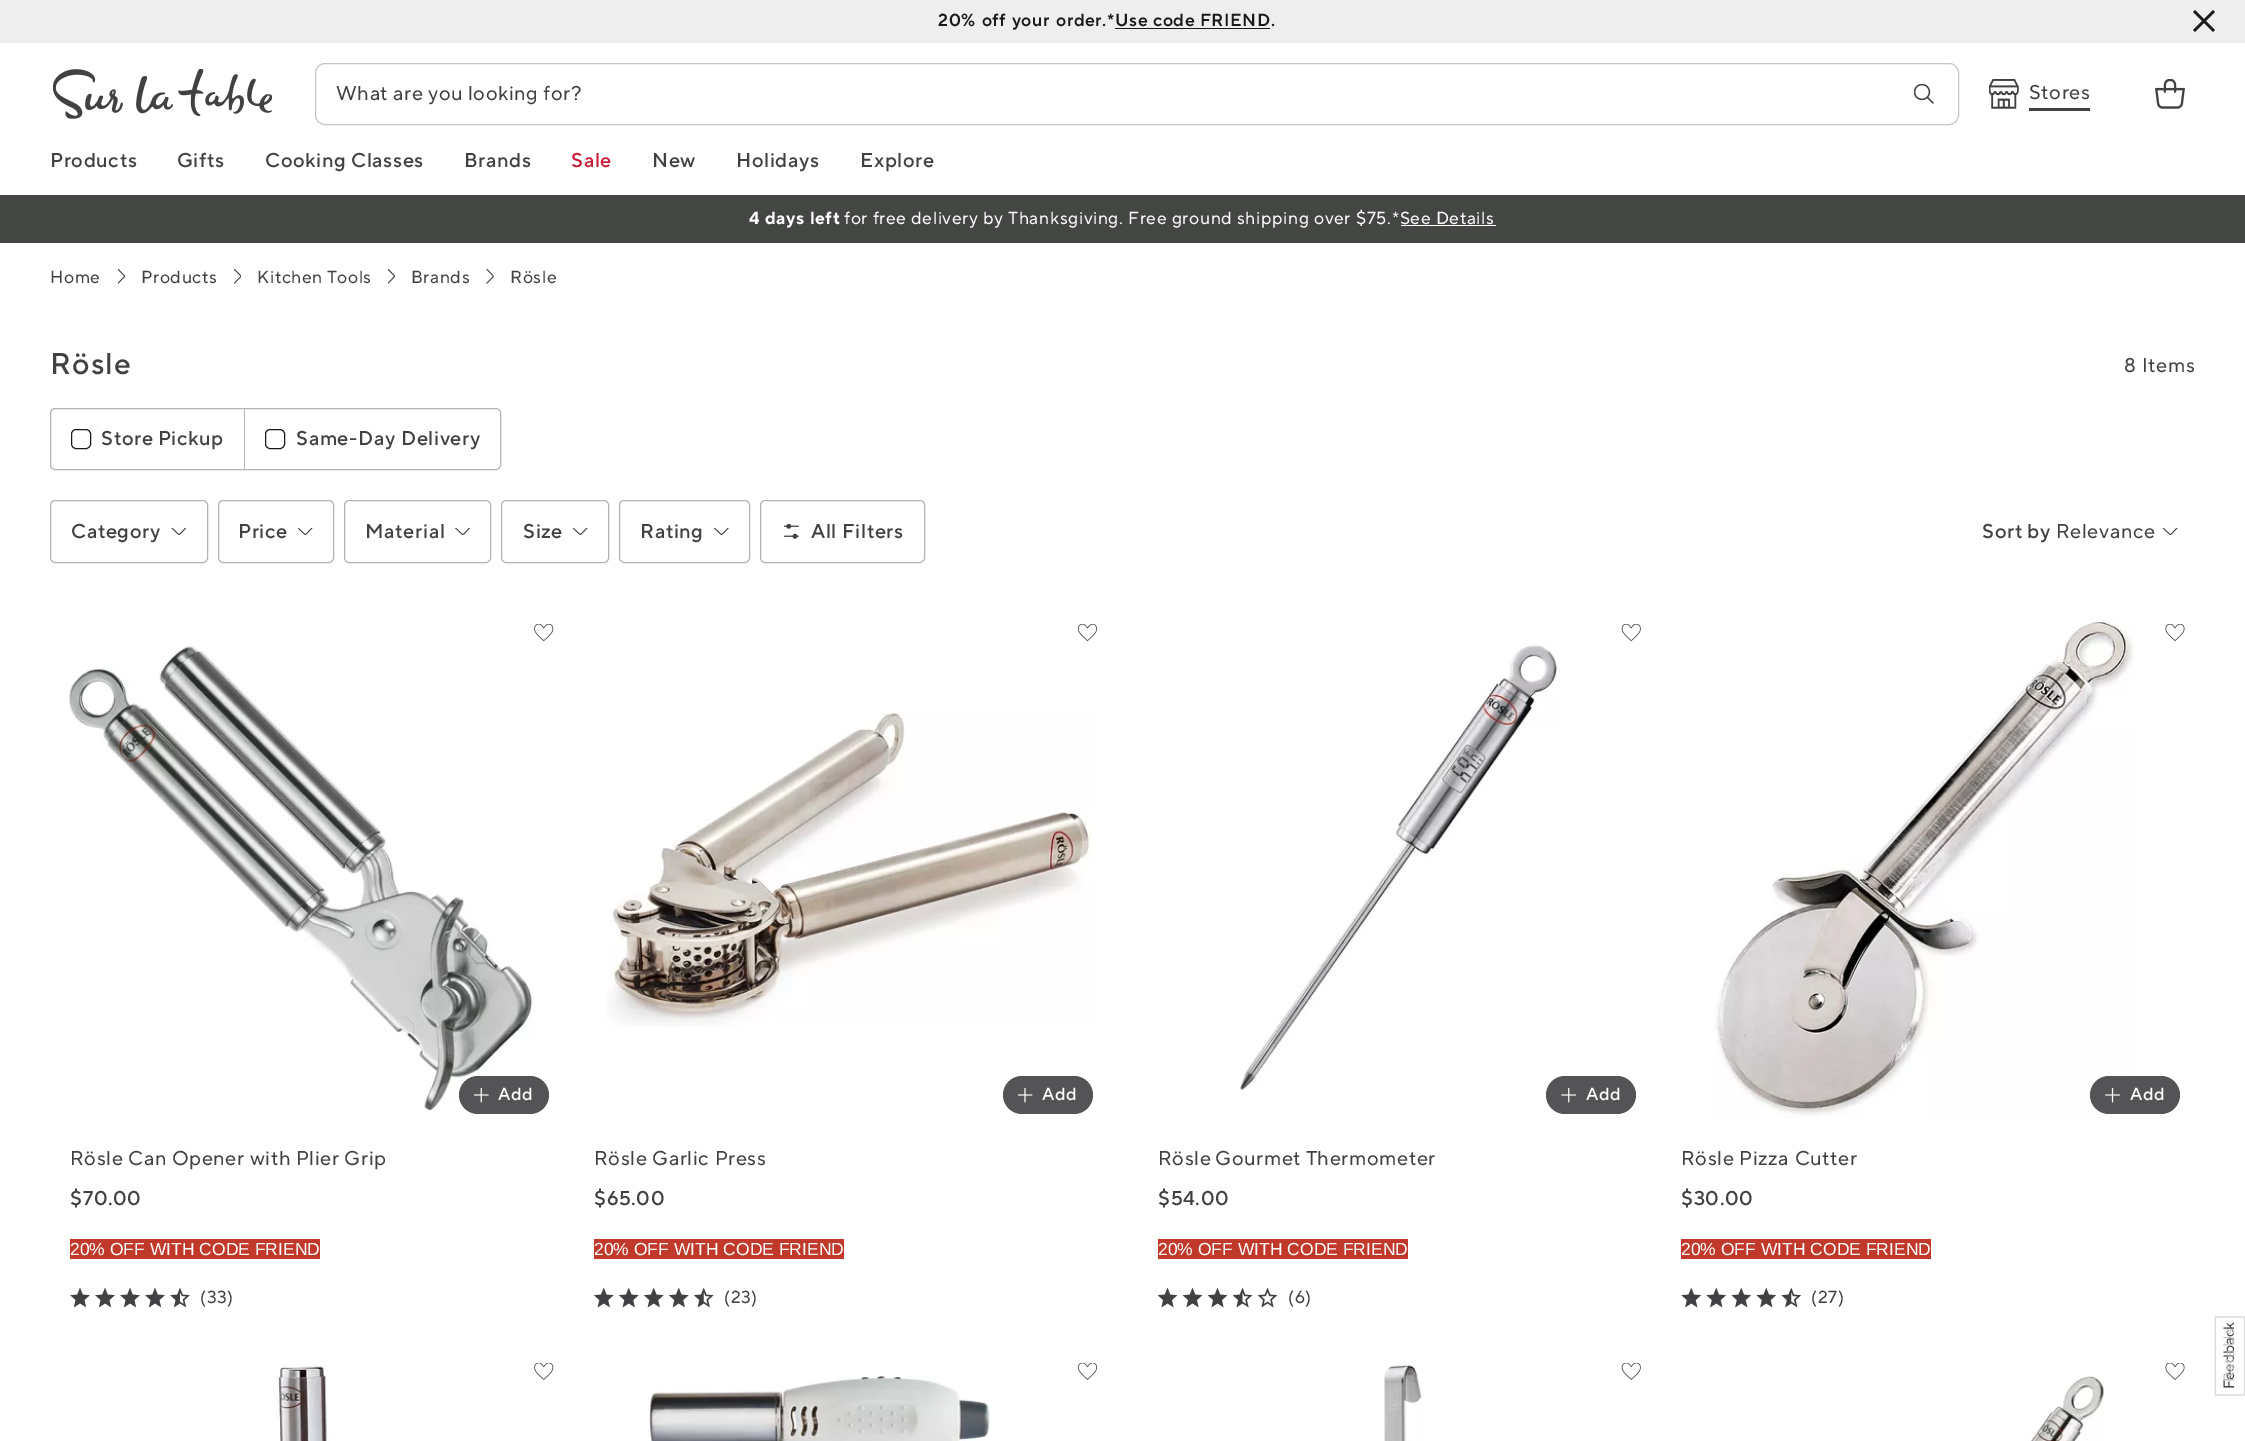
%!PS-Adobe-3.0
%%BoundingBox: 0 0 2245 1441
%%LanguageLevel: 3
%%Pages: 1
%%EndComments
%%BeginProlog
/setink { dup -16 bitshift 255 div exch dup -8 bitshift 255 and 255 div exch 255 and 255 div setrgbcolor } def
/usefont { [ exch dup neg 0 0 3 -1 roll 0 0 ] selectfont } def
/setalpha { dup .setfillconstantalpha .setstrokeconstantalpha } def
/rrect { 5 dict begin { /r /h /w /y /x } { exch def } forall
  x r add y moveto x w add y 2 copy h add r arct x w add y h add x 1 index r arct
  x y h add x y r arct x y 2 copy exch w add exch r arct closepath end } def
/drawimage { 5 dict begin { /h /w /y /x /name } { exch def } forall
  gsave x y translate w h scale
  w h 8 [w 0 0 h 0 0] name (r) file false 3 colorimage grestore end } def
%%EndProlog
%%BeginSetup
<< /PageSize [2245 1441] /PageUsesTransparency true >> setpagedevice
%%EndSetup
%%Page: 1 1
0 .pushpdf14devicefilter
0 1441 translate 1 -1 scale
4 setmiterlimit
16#FFFFFF setink
0 0 2245 1441 rectfill
16#EEEEEE setink
0 0 2245 43 rectfill
/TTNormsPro-SemiBold 17.5 usefont
16#1A1A1A setink
938 26 moveto 1 0 32 0.62 0 (20% off your order.*) awidthshow
1115 28 155 1 rectfill
1115 26 moveto 0.62 0 (Use code FRIEND.) ashow
2.5 setlinewidth
2194 11 moveto 2214 31 lineto 2214 11 moveto 2194 31 lineto stroke
(img1.raw) 53 69 219 50 drawimage
16#C6C6C6 setink
1 setlinewidth
315.5 63.5 1643 61 9.5 rrect stroke
/TTNormsPro-Regular 20 usefont
16#414042 setink
336 100 moveto -0.5 0 32 0.62 0 (What are you looking for?) awidthshow
(img2.raw) 1914 84 20 20 drawimage
(img3.raw) 1989 79 30 30 drawimage
2029 108 61 3 rectfill
2029 99 moveto 0.62 0 (Stores) ashow
(img4.raw) 2155 79 30 30 drawimage
/TTNormsPro-Medium 20 usefont
50 167 moveto 0.62 0 (Products) ashow
177 167 moveto 0.62 0 (Gifts) ashow
265 167 moveto 0.62 0 (Cooking Classes) ashow
464 167 moveto 0.62 0 (Brands) ashow
16#C61B36 setink
571 167 moveto 0.62 0 (Sale) ashow
16#414042 setink
652 167 moveto 0.62 0 (New) ashow
736 167 moveto 0.62 0 (Holidays) ashow
860 167 moveto 0.62 0 (Explore) ashow
16#444644 setink
0 195 2245 48 rectfill
/TTNormsPro-Bold 17.5 usefont
16#FFFFFF setink
749 224 moveto 0.62 0 (4 days left) ashow
/TTNormsPro-Regular 17.5 usefont
844 224 moveto 0.62 0 (for free delivery by Thanksgiving. Free ground shipping over $75.*See Details) ashow
1401 225 95 1 rectfill
16#414042 setink
50 283 moveto 0.62 0 (Home) ashow
(img5.raw) 118 269 7 15 drawimage
141 283 moveto 0.62 0 (Products) ashow
(img6.raw) 234 269 7 15 drawimage
257 283 moveto -1 0 32 0.62 0 (Kitchen Tools) awidthshow
(img5.raw) 388 269 7 15 drawimage
411 283 moveto 0.62 0 (Brands) ashow
(img7.raw) 486 269 8 15 drawimage
510 283 moveto 0.62 0 (Rösle) ashow
/TTNormsPro-Medium 30 usefont
50 374 moveto 1.25 0 (Rösle) ashow
/TTNormsPro-Regular 20 usefont
2124 372 moveto 0.62 0 (8 Items) ashow
16#B3B3B3 setink
50.5 408.5 450 61 4.5 rrect stroke
244 409 1 60 rectfill
16#1A1A1A setink
71.5 429.5 19 19 4.5 rrect stroke
/TTNormsPro-Medium 20 usefont
16#414042 setink
101 445 moveto -1 0 32 0.62 0 (Store Pickup) awidthshow
16#1A1A1A setink
265.5 429.5 19 19 4.5 rrect stroke
16#414042 setink
296 445 moveto 0.62 0 (Same-Day Delivery) ashow
16#B3B3B3 setink
50.5 500.5 157 62 4.5 rrect stroke
16#414042 setink
71 538 moveto 0.62 0 (Category) ashow
(img8.raw) 171 528 15 7 drawimage
16#B3B3B3 setink
218.5 500.5 115 62 4.5 rrect stroke
16#414042 setink
238 538 moveto 0.62 0 (Price) ashow
(img9.raw) 298 528 15 7 drawimage
16#B3B3B3 setink
344.5 500.5 146 62 4.5 rrect stroke
16#414042 setink
365 538 moveto 0.62 0 (Material) ashow
(img10.raw) 455 528 15 7 drawimage
16#B3B3B3 setink
501.5 500.5 107 62 4.5 rrect stroke
16#414042 setink
523 538 moveto 0.62 0 (Size) ashow
(img9.raw) 573 528 15 7 drawimage
16#B3B3B3 setink
619.5 500.5 130 62 4.5 rrect stroke
16#414042 setink
640 538 moveto 0.62 0 (Rating) ashow
(img11.raw) 714 528 15 7 drawimage
16#B3B3B3 setink
760.5 500.5 164 62 4.5 rrect stroke
(img12.raw) 784 524 15 15 drawimage
16#414042 setink
811 538 moveto 0.62 0 (All Filters) ashow
1982 538 moveto -0.5 0 32 0.62 0 (Sort by) awidthshow
/TTNormsPro-Regular 20 usefont
2056 538 moveto 0.62 0 (Relevance) ashow
(img9.raw) 2163 528 15 7 drawimage
(img13.raw) 534 624 20 17 drawimage
(img14.raw) 69 646 466 465 drawimage
16#545355 setink
459 1076 90 38 19 rrect fill
(img15.raw) 474 1088 15 15 drawimage
/TTNormsPro-Medium 17.5 usefont
16#FFFFFF setink
498 1100 moveto 0.62 0 (Add) ashow
/TTNormsPro-Regular 20 usefont
16#414042 setink
70 1165 moveto -0.25 0 32 0.62 0 (Rösle Can Opener with Plier Grip) awidthshow
/TTNormsPro-Medium 20 usefont
70 1205 moveto 0.62 0 ($70.00) ashow
16#C0392B setink
70 1239 250 20 rectfill
/LiberationSans-Regular 17.5 usefont
16#FFFFFF setink
70 1255 moveto (20% OFF WITH CODE FRIEND) show
(img16.raw) 70 1288 20 20 drawimage
(img16.raw) 95 1288 20 20 drawimage
(img16.raw) 120 1288 20 20 drawimage
(img16.raw) 145 1288 20 20 drawimage
(img17.raw) 170 1288 20 20 drawimage
/TTNormsPro-Regular 17.5 usefont
16#414042 setink
200 1303 moveto 0.62 0 (\(33\)) ashow
(img18.raw) 1078 624 20 17 drawimage
(img19.raw) 606 712 487 315 drawimage
16#545355 setink
1003 1076 90 38 19 rrect fill
(img20.raw) 1018 1088 15 15 drawimage
/TTNormsPro-Medium 17.5 usefont
16#FFFFFF setink
1042 1100 moveto 0.62 0 (Add) ashow
/TTNormsPro-Regular 20 usefont
16#414042 setink
594 1165 moveto 0.62 0 (Rösle Garlic Press) ashow
/TTNormsPro-Medium 20 usefont
594 1205 moveto 0.62 0 ($65.00) ashow
16#C0392B setink
594 1239 250 20 rectfill
/LiberationSans-Regular 17.5 usefont
16#FFFFFF setink
594 1255 moveto (20% OFF WITH CODE FRIEND) show
(img21.raw) 594 1288 20 20 drawimage
(img21.raw) 619 1288 20 20 drawimage
(img21.raw) 644 1288 20 20 drawimage
(img21.raw) 669 1288 20 20 drawimage
(img22.raw) 694 1288 20 20 drawimage
/TTNormsPro-Regular 17.5 usefont
16#414042 setink
724 1303 moveto 0.62 0 (\(23\)) ashow
(img23.raw) 1621 624 20 17 drawimage
(img24.raw) 1240 645 317 446 drawimage
16#545355 setink
1546 1076 90 38 19 rrect fill
(img25.raw) 1561 1088 15 15 drawimage
/TTNormsPro-Medium 17.5 usefont
16#FFFFFF setink
1586 1100 moveto 0.62 0 (Add) ashow
/TTNormsPro-Regular 20 usefont
16#414042 setink
1158 1165 moveto -1 0 32 0.62 0 (Rösle Gourmet Thermometer) awidthshow
/TTNormsPro-Medium 20 usefont
1158 1205 moveto 0.62 0 ($54.00) ashow
16#C0392B setink
1158 1239 250 20 rectfill
/LiberationSans-Regular 17.5 usefont
16#FFFFFF setink
1158 1255 moveto (20% OFF WITH CODE FRIEND) show
(img26.raw) 1158 1288 20 20 drawimage
(img26.raw) 1183 1288 20 20 drawimage
(img26.raw) 1208 1288 20 20 drawimage
(img27.raw) 1233 1288 20 20 drawimage
(img28.raw) 1258 1288 20 20 drawimage
/TTNormsPro-Regular 17.5 usefont
16#414042 setink
1288 1303 moveto 0.62 0 (\(6\)) ashow
(img29.raw) 2165 624 20 17 drawimage
(img30.raw) 1715 622 419 496 drawimage
16#545355 setink
2090 1076 90 38 19 rrect fill
(img31.raw) 2105 1088 15 15 drawimage
/TTNormsPro-Medium 17.5 usefont
16#FFFFFF setink
2130 1100 moveto 0.62 0 (Add) ashow
/TTNormsPro-Regular 20 usefont
16#414042 setink
1681 1165 moveto 0.62 0 (Rösle Pizza Cutter) ashow
/TTNormsPro-Medium 20 usefont
1681 1205 moveto 0.62 0 ($30.00) ashow
16#C0392B setink
1681 1239 250 20 rectfill
/LiberationSans-Regular 17.5 usefont
16#FFFFFF setink
1681 1255 moveto (20% OFF WITH CODE FRIEND) show
(img32.raw) 1681 1288 20 20 drawimage
(img32.raw) 1706 1288 20 20 drawimage
(img32.raw) 1731 1288 20 20 drawimage
(img32.raw) 1756 1288 20 20 drawimage
(img33.raw) 1781 1288 20 20 drawimage
/TTNormsPro-Regular 17.5 usefont
16#414042 setink
1811 1303 moveto 0.62 0 (\(27\)) ashow
(img34.raw) 276 1365 54 76 drawimage
(img35.raw) 534 1363 20 17 drawimage
(img36.raw) 1078 1363 20 17 drawimage
(img37.raw) 647 1376 344 65 drawimage
(img38.raw) 1384 1365 38 76 drawimage
(img39.raw) 1621 1363 20 17 drawimage
(img40.raw) 2165 1363 20 17 drawimage
(img41.raw) 2030 1375 75 66 drawimage
16#D9D9D9 setink
1.2 setlinewidth
2215.5 1395 moveto 2215.5 1317 lineto 2244.5 1317 lineto 2244.5 1395 lineto closepath stroke
0.8 setalpha
16#FFFFFF setink
2216 1318 28 76 rectfill
/TTNormsPro-Regular 15 usefont
1 setalpha
16#414042 setink
gsave 2234 1389 translate -90 rotate 0 0 moveto (Feedback) show grestore
16#C0BFC0 setink
gsave 2234 1382 translate -90 rotate 0 0 moveto (Rate Us) show grestore
.poppdf14devicefilter showpage
%%EOF
